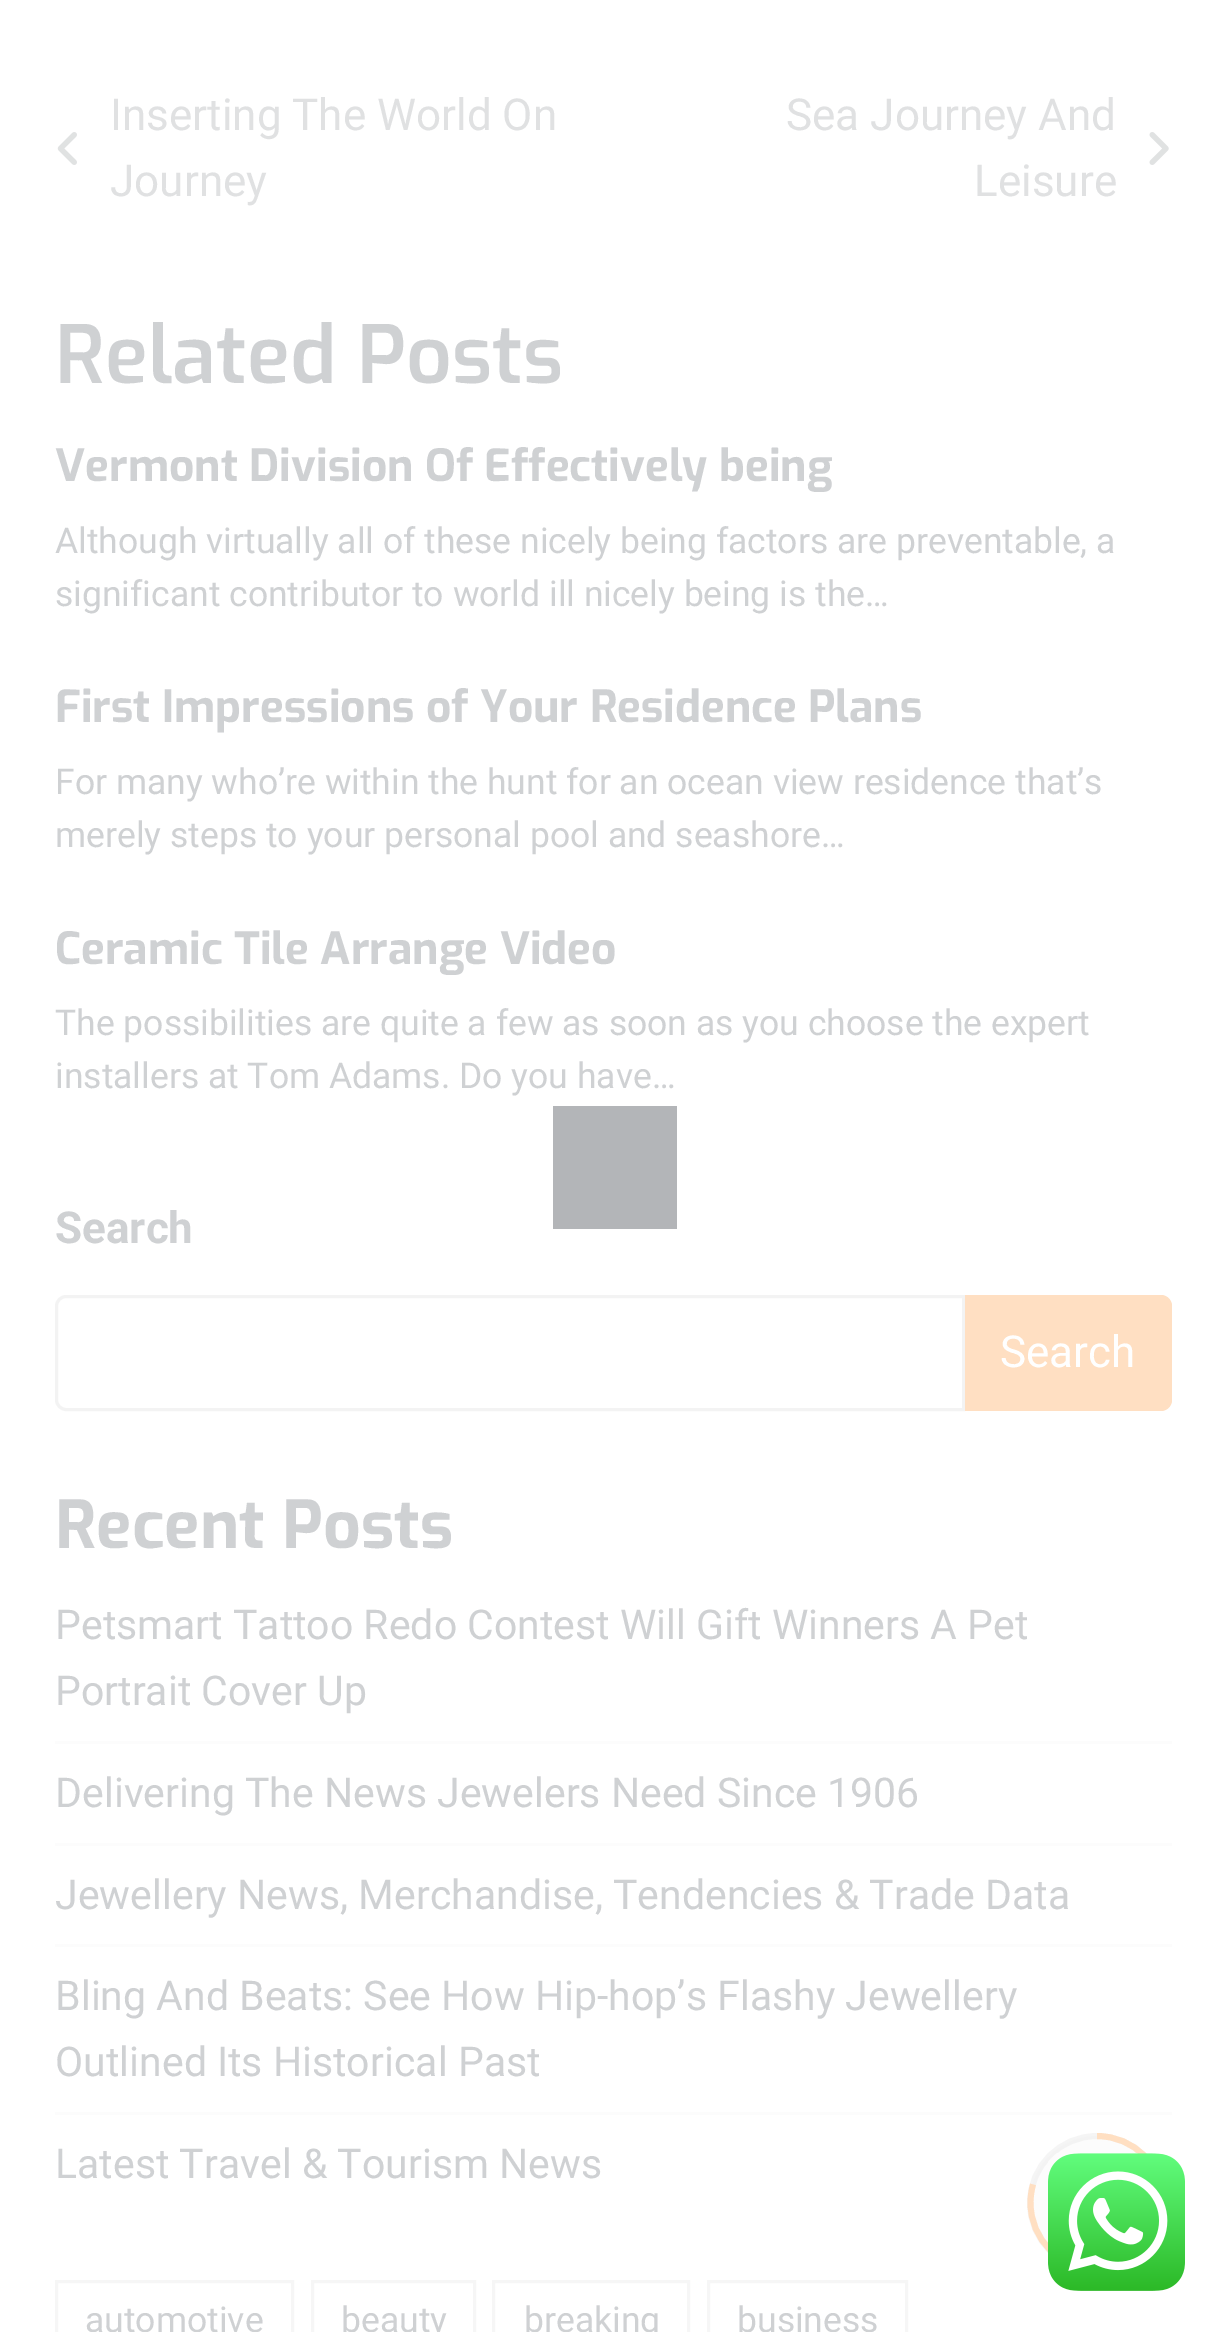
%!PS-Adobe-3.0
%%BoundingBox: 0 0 1224 2332
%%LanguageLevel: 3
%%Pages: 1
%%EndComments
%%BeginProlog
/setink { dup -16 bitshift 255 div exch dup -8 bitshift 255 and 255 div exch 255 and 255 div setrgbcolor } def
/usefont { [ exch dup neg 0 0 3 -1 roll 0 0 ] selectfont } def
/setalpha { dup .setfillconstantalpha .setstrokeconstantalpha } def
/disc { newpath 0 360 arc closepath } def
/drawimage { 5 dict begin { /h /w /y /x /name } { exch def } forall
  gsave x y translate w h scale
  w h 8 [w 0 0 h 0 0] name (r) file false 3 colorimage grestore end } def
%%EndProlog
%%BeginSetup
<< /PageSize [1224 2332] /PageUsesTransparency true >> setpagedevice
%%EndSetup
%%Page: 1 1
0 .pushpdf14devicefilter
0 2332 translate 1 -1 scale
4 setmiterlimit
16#FFFFFF setink
0 0 1224 2332 rectfill
/Roboto-Regular 44 usefont
16#E0E1E2 setink
110 130 moveto (Inserting The World On) show
(img1.raw) 57 132 20 33 drawimage
110 196 moveto (Journey) show
786 130 moveto (Sea Journey And) show
(img2.raw) 1149 132 20 33 drawimage
974 196 moveto (Leisure) show
/Exo-SemiBold 80 usefont
16#CFD1D3 setink
55 383 moveto (Related Posts) show
/Exo-Bold 44.25 usefont
55 481 moveto (Vermont Division Of Effectively being) show
/Roboto-Regular 35.5 usefont
55 553 moveto (Although virtually all of these nicely being factors are preventable, a) show
55 606 moveto (significant contributor to world ill nicely being is the…) show
/Exo-Bold 44.25 usefont
55 722 moveto (First Impressions of Your Residence Plans) show
/Roboto-Regular 35.5 usefont
55 794 moveto (For many who’re within the hunt for an ocean view residence that’s) show
55 847 moveto (merely steps to your personal pool and seashore…) show
/Exo-Bold 44.25 usefont
55 964 moveto (Ceramic Tile Arrange Video) show
/Roboto-Regular 35.5 usefont
55 1035 moveto (The possibilities are quite a few as soon as you choose the expert) show
55 1088 moveto (installers at Tom Adams. Do you have…) show
/Roboto-Bold 44 usefont
55 1243 moveto (Search) show
16#F3F3F3 setink
3 setlinewidth
66 1296.5 moveto 963.5 1296.5 lineto 963.5 1409.5 lineto 66 1409.5 lineto 61 1409.5 56.5 1405 56.5 1400 curveto 56.5 1306 lineto 56.5 1301 61 1296.5 66 1296.5 curveto closepath stroke
16#FFDFC2 setink
965 1295 moveto 1161 1295 lineto 1167 1295 1172 1300 1172 1306 curveto 1172 1400 lineto 1172 1406 1167 1411 1161 1411 curveto 965 1411 lineto closepath fill
/Roboto-Regular 44 usefont
16#FFFFFF setink
1000 1367 moveto (Search) show
/Exo-Bold 66 usefont
16#CFD1D3 setink
55 1548 moveto (Recent Posts) show
16#FCFCFC setink
55 1741 1117 3 rectfill
/Roboto-Regular 41 usefont
16#CFD1D3 setink
55 1639 moveto (Petsmart Tattoo Redo Contest Will Gift Winners A Pet) show
55 1705 moveto (Portrait Cover Up) show
16#FCFCFC setink
55 1843 1117 3 rectfill
16#CFD1D3 setink
55 1807 moveto (Delivering The News Jewelers Need Since 1906) show
16#FCFCFC setink
55 1944 1117 3 rectfill
16#CFD1D3 setink
55 1909 moveto (Jewellery News, Merchandise, Tendencies & Trade Data) show
16#FCFCFC setink
55 2112 1117 3 rectfill
16#CFD1D3 setink
[
    [(Bling And Beats: See How Hip-hop’s Flashy Jewellery) 55 2010]
    [(Outlined Its Historical Past) 55 2076]
    [(Latest Travel & Tourism News) 55 2178]
] { aload pop moveto show } forall
16#F6F6F6 setink
56.5 2281.5 236 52 rectstroke
/Roboto-Regular 35.5 usefont
16#CFD1D3 setink
85 2332 moveto (automotive) show
16#F6F6F6 setink
312.5 2281.5 162 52 rectstroke
16#CFD1D3 setink
341 2332 moveto (beauty) show
16#F6F6F6 setink
493.5 2281.5 195 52 rectstroke
16#CFD1D3 setink
524 2332 moveto (breaking) show
16#F6F6F6 setink
708.5 2281.5 198 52 rectstroke
16#CFD1D3 setink
737 2332 moveto (business) show
16#B3B5B8 setink
553 1106 124 123 rectfill
16#FCFCFC setink
1097 2203 67 disc fill
0.38 setalpha
16#E5E5E5 setink
5.9 setlinewidth
1097 2203 67 disc stroke
1 setalpha
16#FFDFC2 setink
1097 2136 moveto 1134 2136 1164 2166 1164 2203 curveto 1164 2239.5 1134 2269.5 1097 2269.5 curveto 1060.5 2269.5 1030.5 2239.5 1030.5 2203 curveto 1030.5 2196.5 1031.5 2190 1033 2184.5 curveto stroke
(img3.raw) 1048 2153 137 138 drawimage
.poppdf14devicefilter showpage
%%EOF
